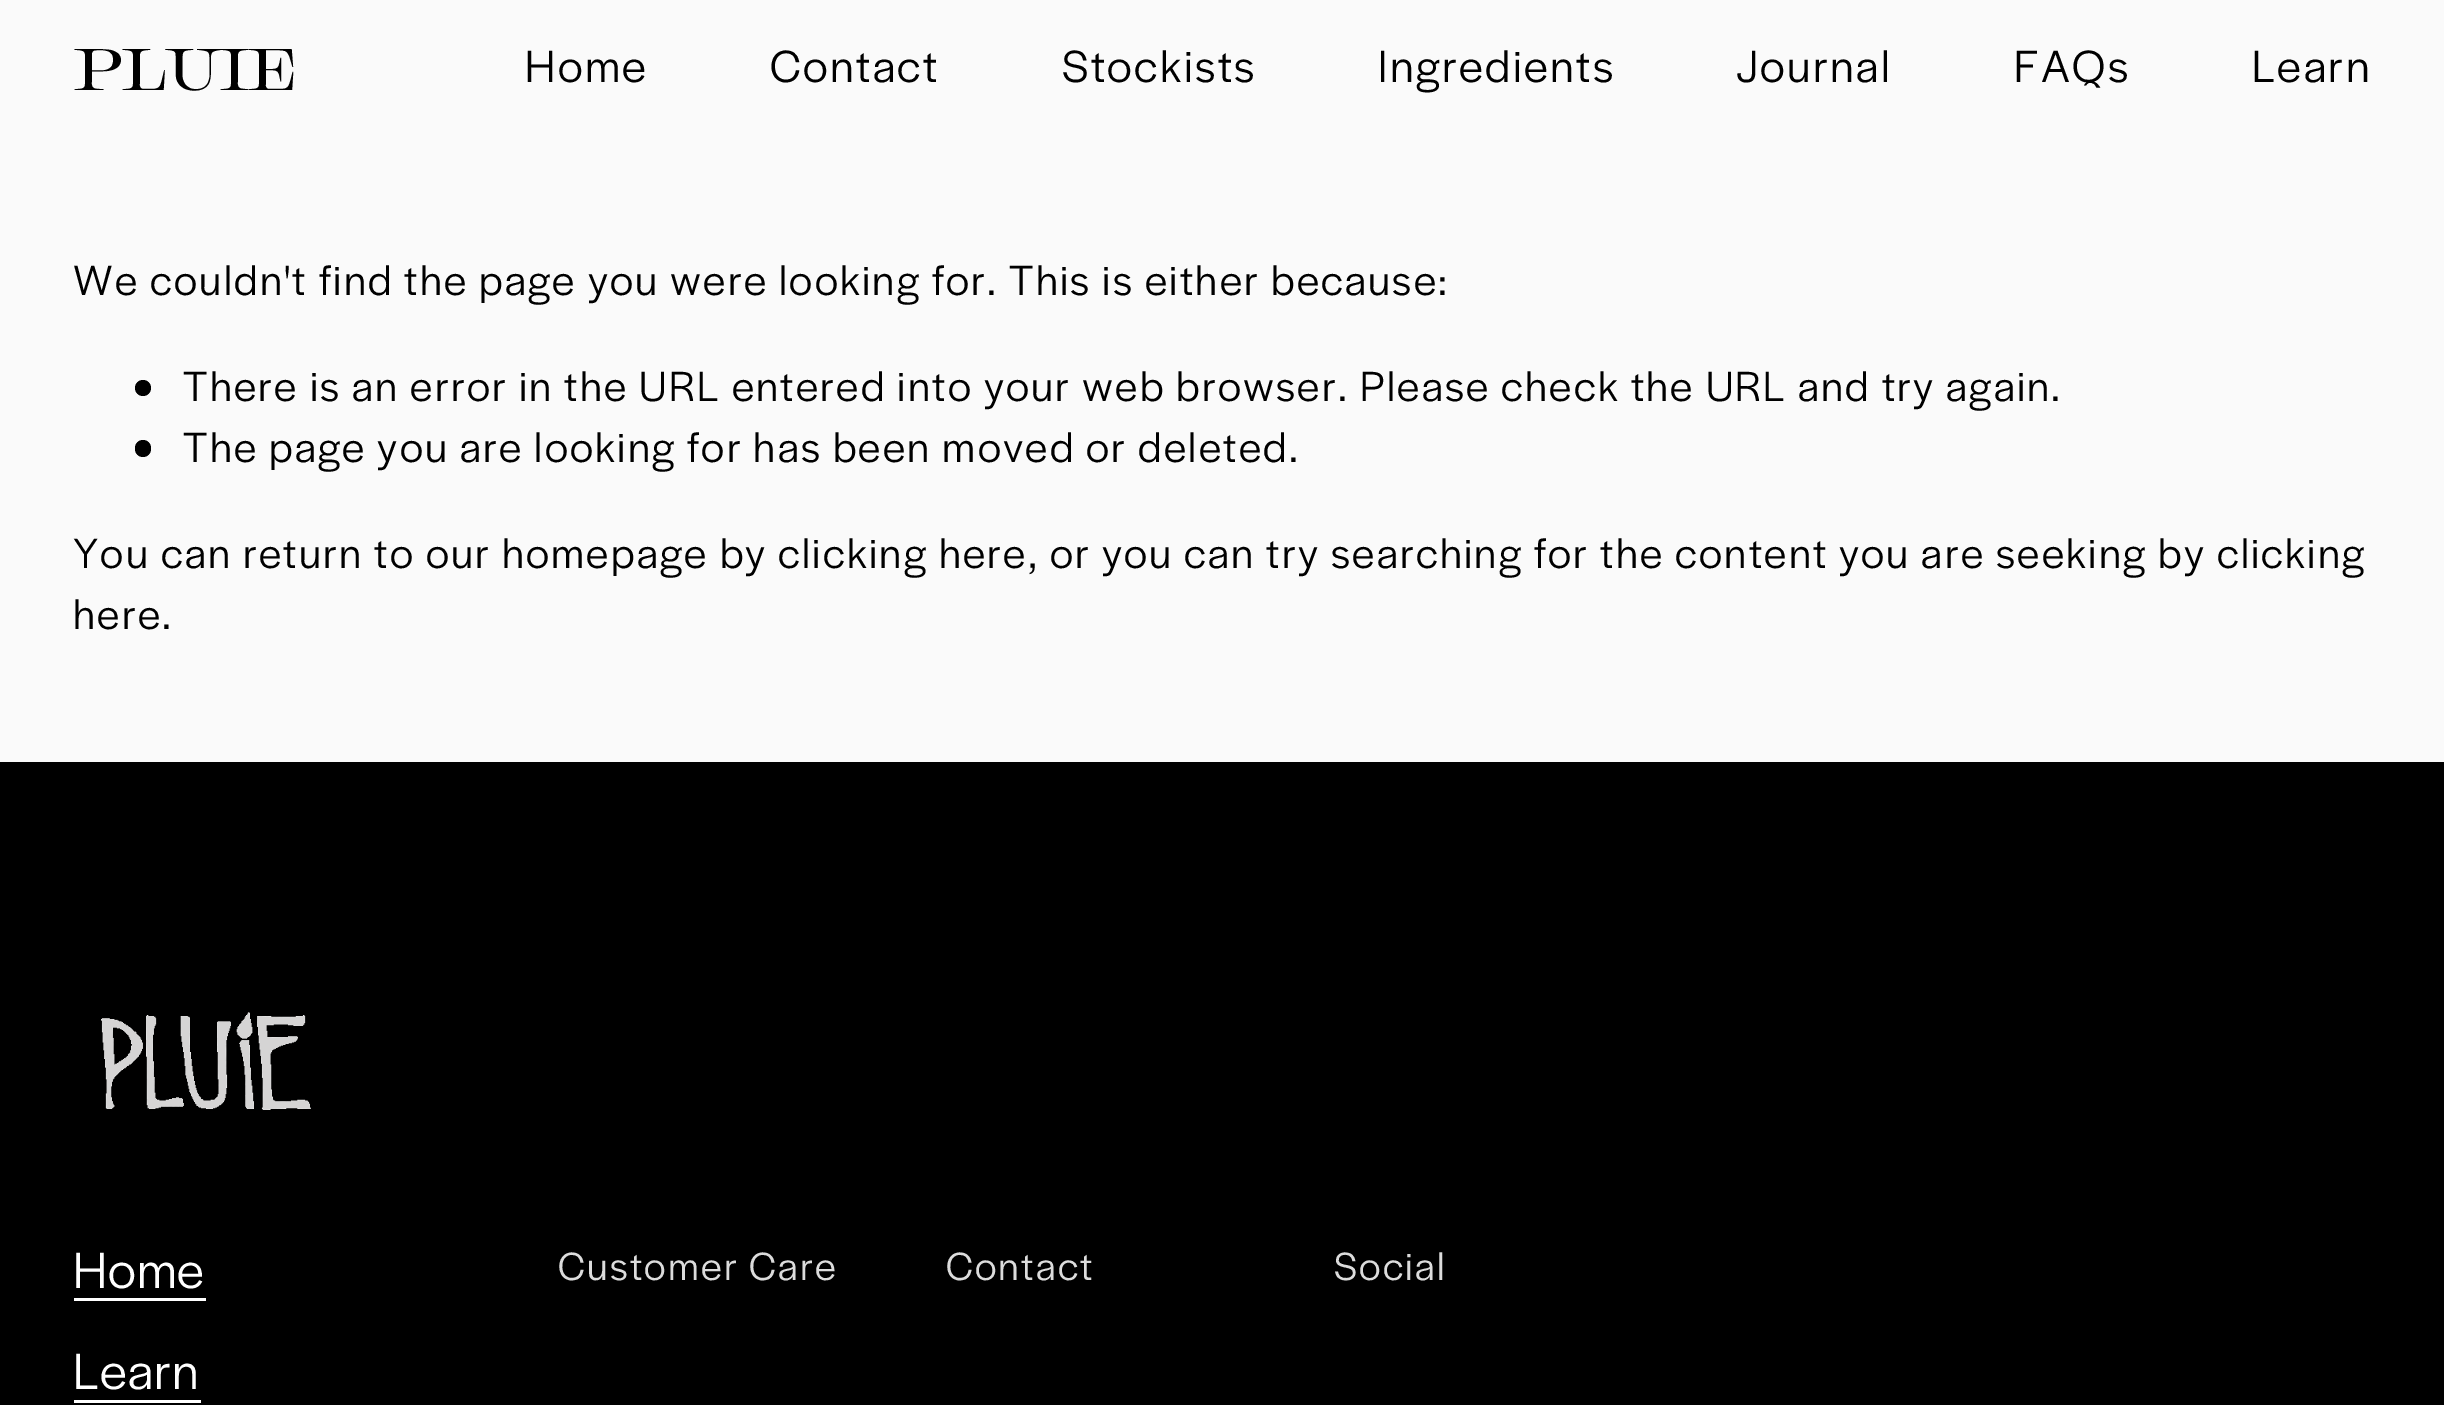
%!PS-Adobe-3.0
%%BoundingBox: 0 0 2444 1405
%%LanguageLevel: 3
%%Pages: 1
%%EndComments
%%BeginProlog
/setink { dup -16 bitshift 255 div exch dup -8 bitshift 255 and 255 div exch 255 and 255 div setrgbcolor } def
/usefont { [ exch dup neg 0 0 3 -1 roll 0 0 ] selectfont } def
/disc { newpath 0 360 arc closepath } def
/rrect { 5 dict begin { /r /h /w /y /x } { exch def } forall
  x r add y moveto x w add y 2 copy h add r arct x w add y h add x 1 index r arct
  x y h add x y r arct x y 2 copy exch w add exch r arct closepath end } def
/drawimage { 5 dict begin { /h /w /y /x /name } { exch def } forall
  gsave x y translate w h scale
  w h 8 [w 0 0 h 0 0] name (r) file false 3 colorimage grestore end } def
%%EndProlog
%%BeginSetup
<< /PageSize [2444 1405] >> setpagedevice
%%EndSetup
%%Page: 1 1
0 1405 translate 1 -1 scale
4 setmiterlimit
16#FAFAFA setink
0 0 2444 1405 rectfill
/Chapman-Medium 58.5 usefont
16#000000 setink
73 90 moveto -3 0 (PLUIE) ashow
/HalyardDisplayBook-Regular 47 usefont
525 82 moveto 2.4 0 (Home) ashow
770 82 moveto 2.4 0 (Contact) ashow
1062 82 moveto 2.4 0 (Stockists) ashow
1378 82 moveto 2.4 0 (Ingredients) ashow
1736 82 moveto 2.4 0 (Journal) ashow
2014 82 moveto 2.4 0 (FAQs) ashow
2252 82 moveto 2.4 0 (Learn) ashow
/HalyardDisplayBook-Regular 44 usefont
73 295 moveto 2.2 0 (We couldn't find the page you were looking for. This is either because:) ashow
143 388 8 disc fill
183 401 moveto 2.2 0 (There is an error in the URL entered into your web browser. Please check the URL and try again.) ashow
135 440 16 17 8 rrect fill
183 462 moveto 2.2 0 (The page you are looking for has been moved or deleted.) ashow
73 568 moveto 2.2 0 (You can return to our homepage by clicking here, or you can try searching for the content you are seeking by clicking) ashow
73 629 moveto 2.2 0 (here.) ashow
0 762 2444 643 rectfill
(img1.raw) 101 1012 210 98 drawimage
/HalyardDisplayBook-Regular 53 usefont
16#FFFFFF setink
73 1288 moveto 1 0 (Home) ashow
74 1298 132 3 rectfill
/HalyardDisplayBook-Regular 41 usefont
16#DCDCDC setink
558 1280 moveto 2.2 0 (Customer Care) ashow
946 1280 moveto 2.2 0 (Contact) ashow
1334 1280 moveto 2.2 0 (Social) ashow
/HalyardDisplayBook-Regular 53 usefont
16#FFFFFF setink
73 1389 moveto 1 0 (Learn) ashow
74 1400 127 3 rectfill
showpage
%%EOF
